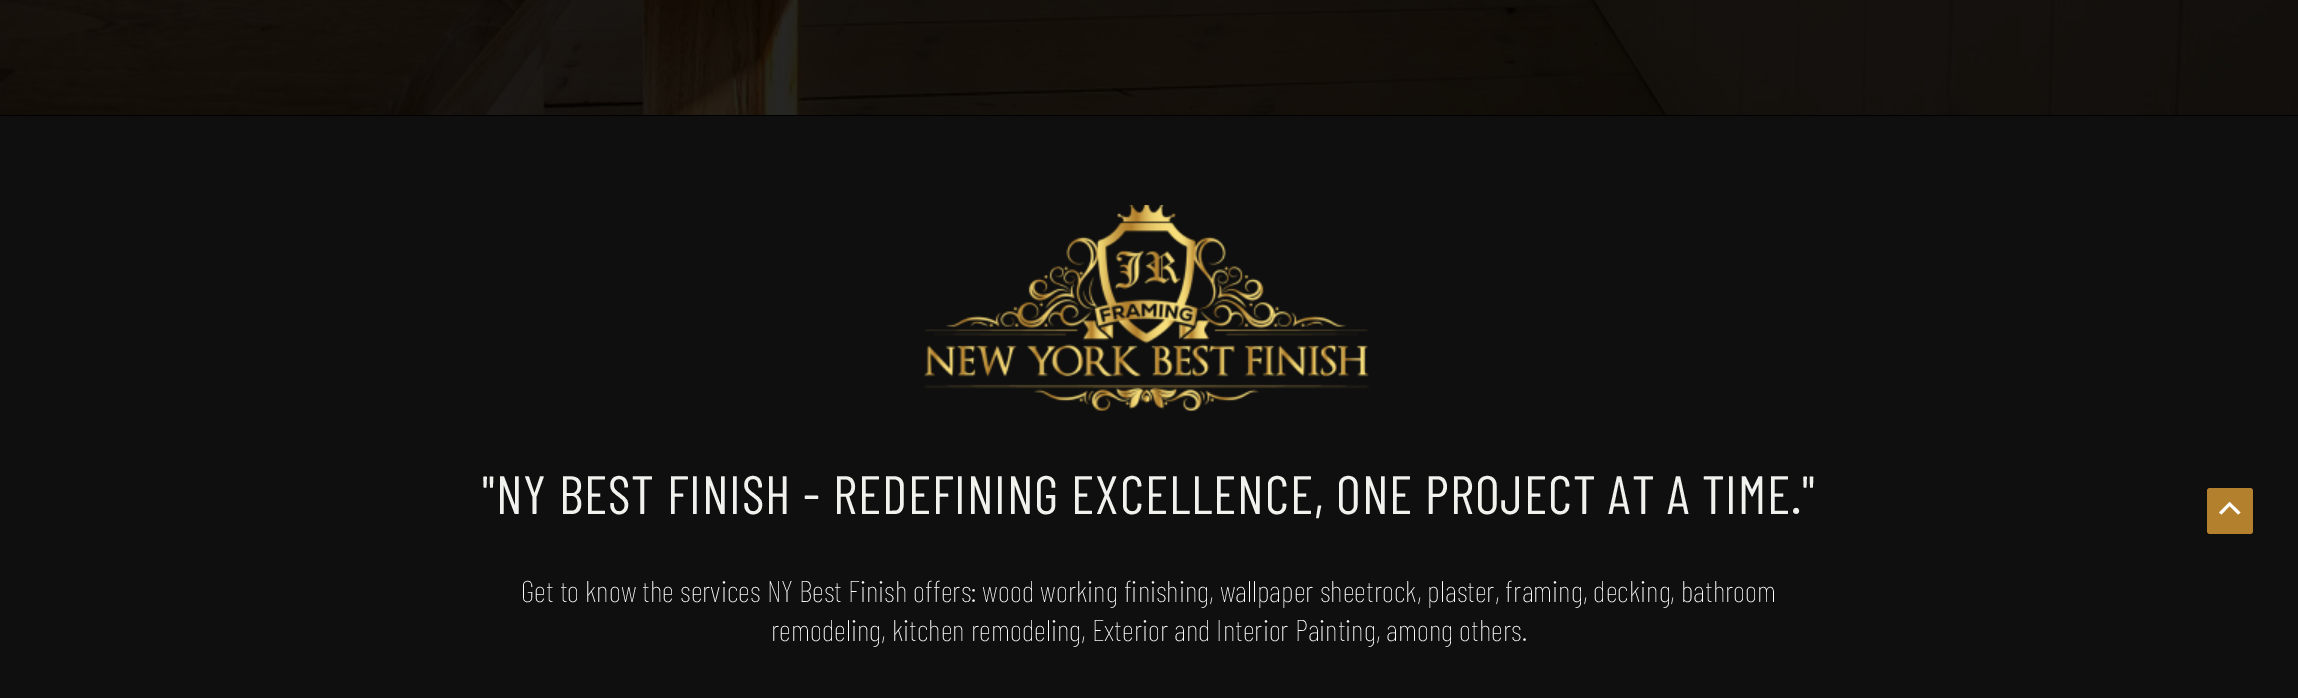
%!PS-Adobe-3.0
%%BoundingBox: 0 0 2298 698
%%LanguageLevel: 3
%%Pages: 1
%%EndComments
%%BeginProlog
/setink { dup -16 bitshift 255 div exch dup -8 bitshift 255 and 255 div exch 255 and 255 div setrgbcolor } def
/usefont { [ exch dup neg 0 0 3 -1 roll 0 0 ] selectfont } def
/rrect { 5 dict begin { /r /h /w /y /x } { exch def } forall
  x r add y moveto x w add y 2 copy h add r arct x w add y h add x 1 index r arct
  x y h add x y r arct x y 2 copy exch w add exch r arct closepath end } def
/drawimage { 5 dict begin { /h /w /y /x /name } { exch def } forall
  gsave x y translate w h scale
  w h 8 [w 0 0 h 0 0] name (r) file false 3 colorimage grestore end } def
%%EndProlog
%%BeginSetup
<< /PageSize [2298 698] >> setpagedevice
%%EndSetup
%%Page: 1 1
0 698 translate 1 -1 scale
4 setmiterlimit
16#000000 setink
0 0 2298 698 rectfill
(img1.raw) 0 0 2298 115 drawimage
16#0F0F0F setink
0 116 2298 582 rectfill
(img2.raw) 924 205 445 207 drawimage
/BarlowCondensed-Regular 54 usefont
16#F1F1ED setink
482 514 moveto 0.9 0 ("NY BEST FINISH - REDEFINING EXCELLENCE, ONE PROJECT AT A TIME.") ashow
/BarlowCondensed-Thin 30 usefont
16#FFFFFF setink
521 602 moveto (Get to know the services NY Best Finish offers: wood working finishing, wallpaper sheetrock, plaster, framing, decking, bathroom) show
771 641 moveto (remodeling, kitchen remodeling, Exterior and Interior Painting, among others.) show
16#B3812D setink
2207 488 46 46 3 rrect fill
16#FFFFFF setink
2240.5 512.5 moveto 2229.5 502 lineto 2219 512.5 lineto 2221.5 514.5 lineto 2229.5 506 lineto 2238 514.5 lineto closepath fill
showpage
%%EOF
